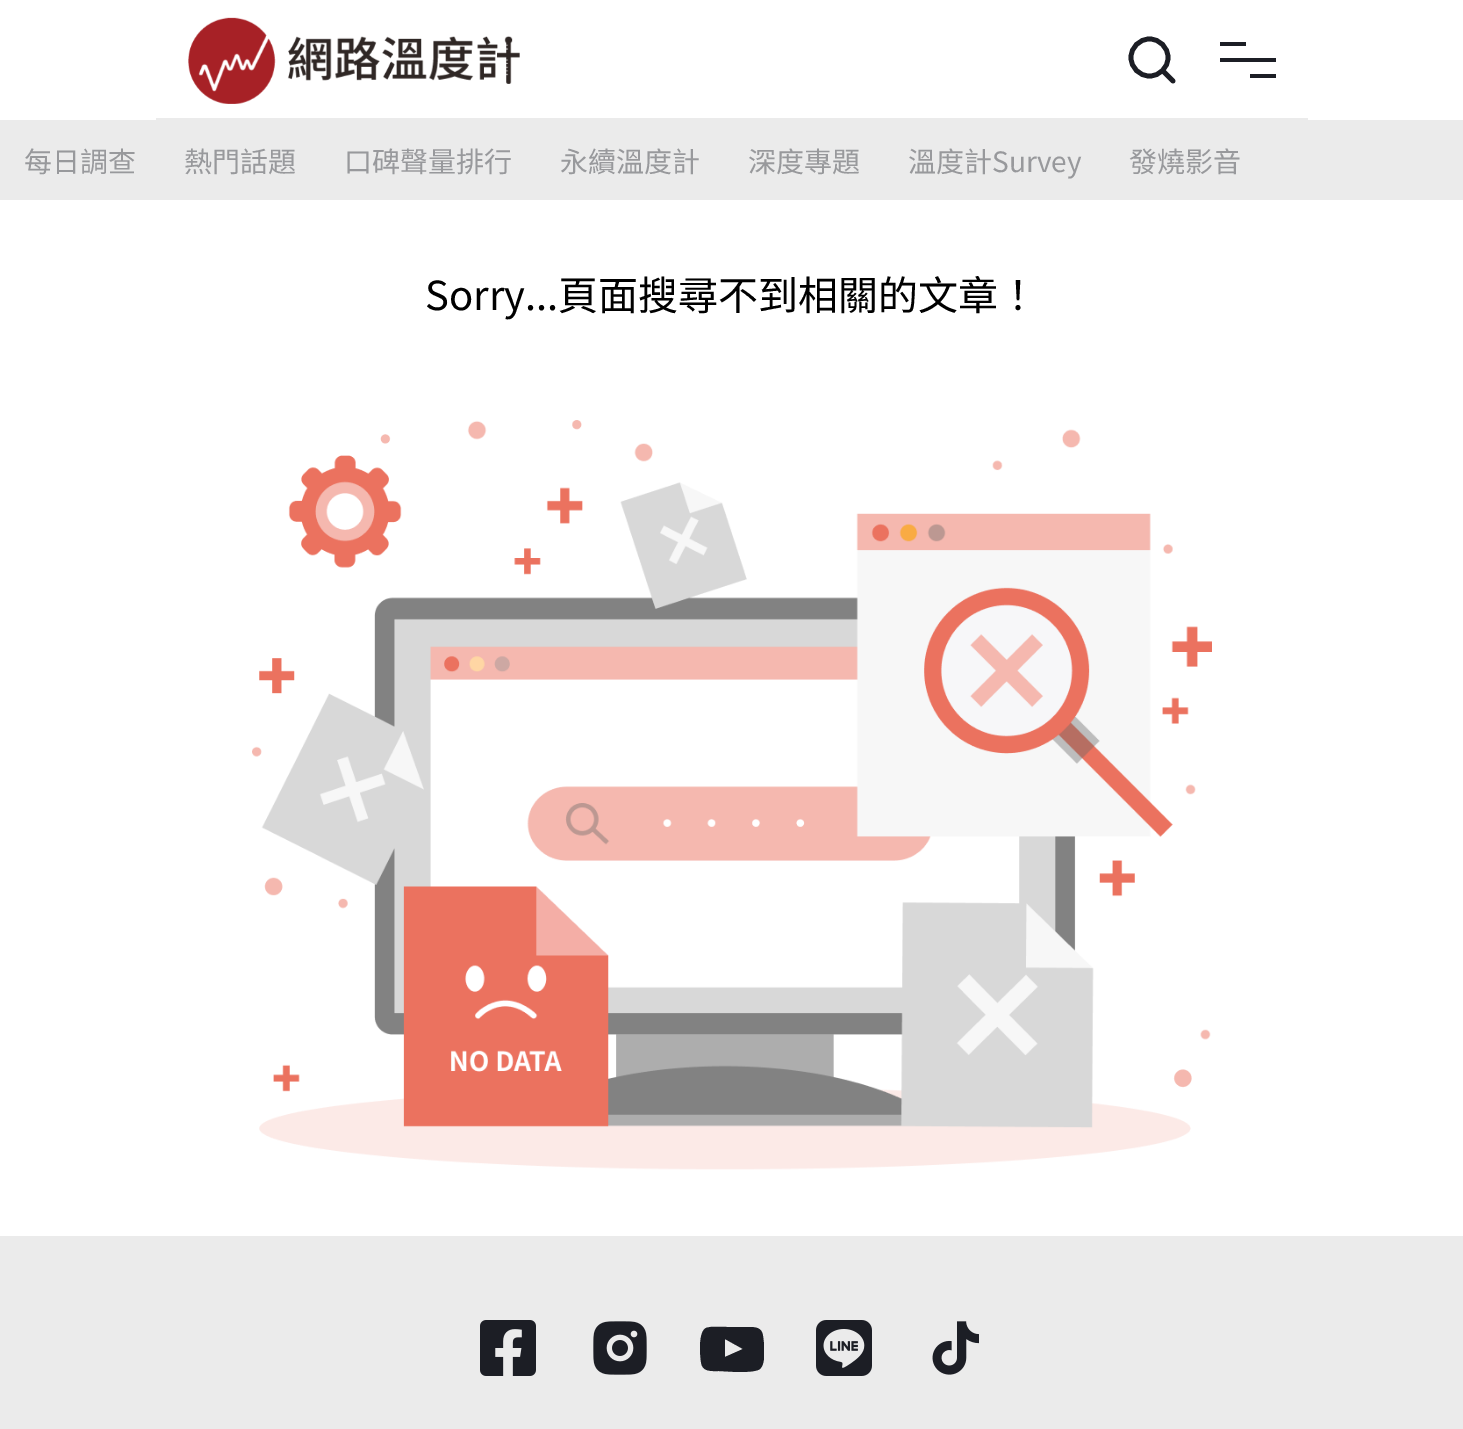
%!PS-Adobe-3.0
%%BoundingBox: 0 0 1463 1429
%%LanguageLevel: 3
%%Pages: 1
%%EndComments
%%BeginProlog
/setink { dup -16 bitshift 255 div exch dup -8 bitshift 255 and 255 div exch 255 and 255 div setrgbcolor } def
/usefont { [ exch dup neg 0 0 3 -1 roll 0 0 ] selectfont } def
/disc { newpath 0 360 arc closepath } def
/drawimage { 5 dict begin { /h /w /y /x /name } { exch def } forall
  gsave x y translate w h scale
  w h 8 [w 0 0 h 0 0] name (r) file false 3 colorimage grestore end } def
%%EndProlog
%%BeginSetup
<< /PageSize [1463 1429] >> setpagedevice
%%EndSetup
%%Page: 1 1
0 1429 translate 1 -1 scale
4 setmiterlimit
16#FFFFFF setink
0 0 1463 1429 rectfill
(img1.raw) 188 17 332 87 drawimage
16#1C1E25 setink
4.7 setlinewidth
1149.5 57.5 18.5 disc stroke
1 setlinecap
1 setlinejoin
1173 81 moveto 1163 71 lineto stroke
[
    [1220 42 26 4 16#1C1E25]
    [1220 58 56 4 16#1C1E25]
    [1250 74 26 4 16#1C1E25]
    [156 118 1152 2 16#EBEBEB]
    [0 120 1463 80 16#EBEBEB]
] { aload pop setink rectfill } forall
/NotoSansTC-Regular 28 usefont
16#98999C setink
[
    [(每日調查) 24 172]
    [(熱門話題) 184 172]
    [(口碑聲量排行) 344 172]
    [(永續溫度計) 560 172]
    [(深度專題) 748 172]
    [(溫度計Survey) 908 172]
    [(發燒影音) 1129 172]
] { aload pop moveto show } forall
/NotoSansTC-Regular 40 usefont
16#000000 setink
425 310 moveto (Sorry...頁面搜尋不到相關的文章！) show
(img2.raw) 252 420 960 750 drawimage
16#EBEBEB setink
0 1236 1463 193 rectfill
(img3.raw) 480 1320 56 56 drawimage
(img4.raw) 593 1321 54 54 drawimage
gsave
700 1316 64 64 rectclip
16#1C1E25 setink
725 1357 moveto 725 1339 lineto 743 1349 lineto closepath 763 1336 moveto 762 1327 755 1327 747 1327 curveto 727 1327 lineto 722 1327 711 1326 706 1328 curveto 698 1332 700 1355 701 1362 curveto 702 1372 711 1371 719 1371 curveto 737 1372 lineto 742 1372 753 1372 758 1370 curveto 767 1367 764 1343 763 1336 curveto closepath eofill
grestore
(img5.raw) 816 1320 56 56 drawimage
(img6.raw) 932 1321 47 54 drawimage
showpage
%%EOF
